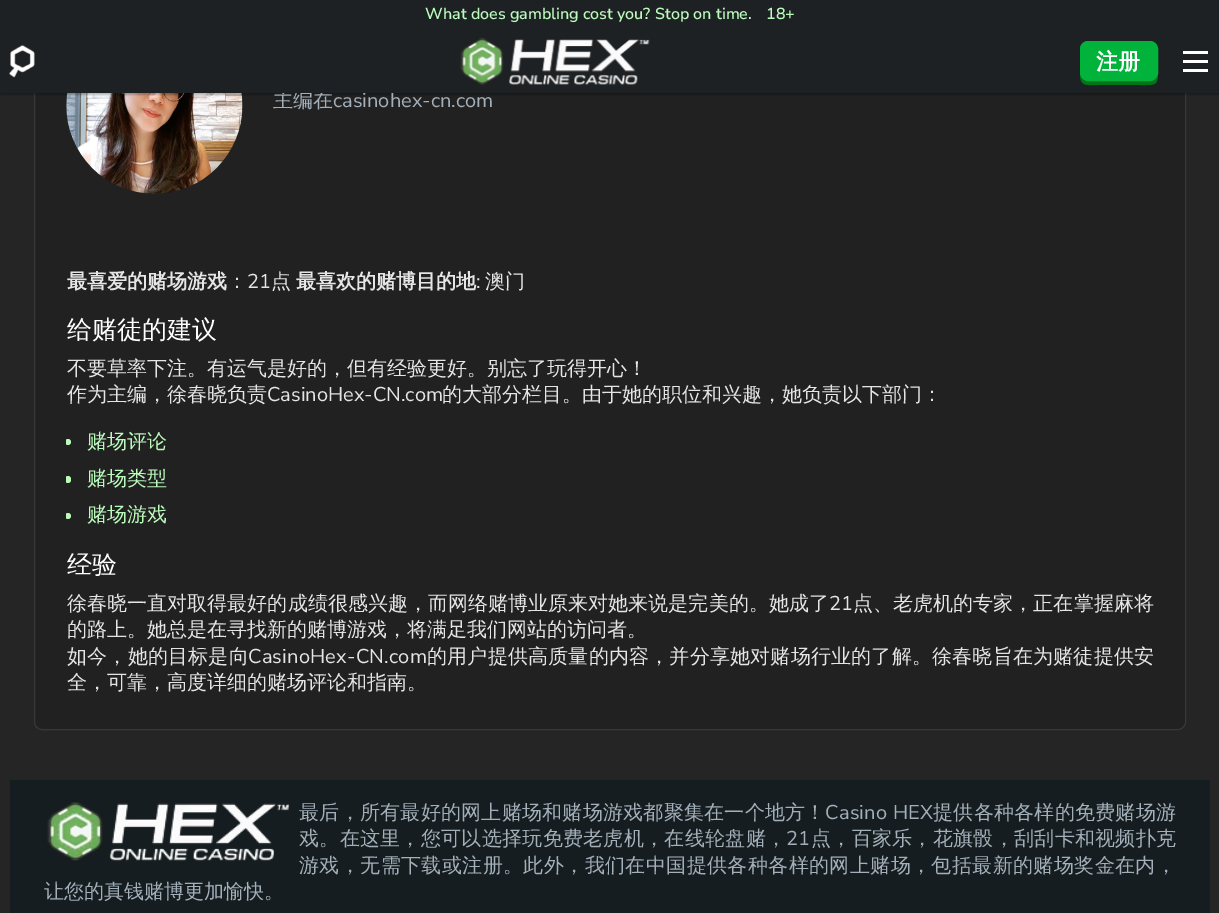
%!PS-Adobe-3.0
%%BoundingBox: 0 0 1219 913
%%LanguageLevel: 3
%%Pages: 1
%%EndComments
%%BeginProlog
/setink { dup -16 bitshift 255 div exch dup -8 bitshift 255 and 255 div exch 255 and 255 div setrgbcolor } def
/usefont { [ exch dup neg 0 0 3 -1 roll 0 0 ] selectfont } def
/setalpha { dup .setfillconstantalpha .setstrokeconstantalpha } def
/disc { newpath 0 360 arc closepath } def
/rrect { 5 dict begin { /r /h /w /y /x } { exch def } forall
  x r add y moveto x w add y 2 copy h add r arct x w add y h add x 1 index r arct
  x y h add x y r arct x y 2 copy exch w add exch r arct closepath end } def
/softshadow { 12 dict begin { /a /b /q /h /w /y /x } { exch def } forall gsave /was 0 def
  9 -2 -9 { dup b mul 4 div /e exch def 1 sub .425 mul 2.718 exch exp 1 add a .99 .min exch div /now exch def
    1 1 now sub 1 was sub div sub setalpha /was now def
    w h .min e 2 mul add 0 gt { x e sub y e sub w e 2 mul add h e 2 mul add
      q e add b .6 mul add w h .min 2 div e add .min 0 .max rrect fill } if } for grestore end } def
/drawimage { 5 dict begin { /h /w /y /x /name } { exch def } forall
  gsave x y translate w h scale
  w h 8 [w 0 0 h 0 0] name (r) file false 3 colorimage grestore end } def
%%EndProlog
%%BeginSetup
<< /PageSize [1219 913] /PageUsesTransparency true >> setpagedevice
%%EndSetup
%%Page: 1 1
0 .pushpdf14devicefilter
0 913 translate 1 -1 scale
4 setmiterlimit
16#252525 setink
0 0 1219 913 rectfill
16#212121 setink
34.5 -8.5 1151 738 7.5 rrect gsave fill grestore
16#383838 setink
stroke
(img3.raw) 66 93 177 101 drawimage
16#000000 setink
0 33 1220 62 0 1 0.3 softshadow
/WenQuanYiZenHei-Medium 20 usefont
16#A3AFB9 setink
273 107 moveto (主编在) show
/NunitoSans-Regular 20 usefont
333 107 moveto (casinohex-cn.com) show
16#1E2123 setink
0 0 1219 93 rectfill
/NunitoSans-SemiBold 16 usefont
16#BBFBBC setink
425 19 moveto (What does gambling cost you? Stop on time.) show
766 19 moveto (18+) show
(img1.raw) 9 45 26 33 drawimage
(img2.raw) 460 38 190 47 drawimage
16#007419 setink
1080 74 moveto 1080 87 1087 85 1098 85 curveto 1140 85 lineto 1157 85 1158 86 1158 69 curveto 1158 50 lineto 1158 74 lineto 1158 78 1154 81 1150 81 curveto 1088 81 lineto 1083 81 1080 78 1080 74 curveto closepath fill
16#01B33B setink
1080.5 41.5 77 39 7.5 rrect gsave fill grestore
stroke
/WenQuanYiZenHei-Bold 22 usefont
16#FFFFFF setink
1096 69 moveto (注册) show
[
    [1183 60 25 3 16#FFFFFF]
    [1183 51 25 3 16#FFFFFF]
    [1183 69 25 3 16#FFFFFF]
] { aload pop setink rectfill } forall
/WenQuanYiZenHei-Bold 20 usefont
16#E5E5E5 setink
67 288 moveto (最喜爱的赌场游戏) show
/WenQuanYiZenHei-Medium 20 usefont
227 288 moveto (：) show
/NunitoSans-Regular 20 usefont
247 288 moveto (21) show
/WenQuanYiZenHei-Medium 20 usefont
271 288 moveto (点) show
/WenQuanYiZenHei-Bold 20 usefont
296 288 moveto (最喜欢的赌博目的地) show
/NunitoSans-Regular 20 usefont
476 288 moveto (:) show
/WenQuanYiZenHei-Medium 20 usefont
485 288 moveto (澳门) show
/WenQuanYiZenHei-Medium 25 usefont
16#FFFFFF setink
67 338 moveto (给赌徒的建议) show
/WenQuanYiZenHei-Medium 20 usefont
16#E5E5E5 setink
67 375 moveto (不要草率下注。有运气是好的，但有经验更好。别忘了玩得开心！) show
67 401 moveto (作为主编，徐春晓负责) show
/NunitoSans-Regular 20 usefont
267 401 moveto (CasinoHex-CN.com) show
/WenQuanYiZenHei-Medium 20 usefont
442 401 moveto (的大部分栏目。由于她的职位和兴趣，她负责以下部门：) show
gsave
66 269 1088 429 rectclip
16#BBFBBC setink
68 442 3 disc fill
grestore
16#BBFBBC setink
87 448 moveto (赌场评论) show
gsave
66 269 1088 429 rectclip
65 476 6 7 3 rrect fill
grestore
87 485 moveto (赌场类型) show
gsave
66 269 1088 429 rectclip
68 516 3 disc fill
grestore
87 521 moveto (赌场游戏) show
/WenQuanYiZenHei-Medium 25 usefont
16#FFFFFF setink
67 573 moveto (经验) show
/WenQuanYiZenHei-Medium 20 usefont
16#E5E5E5 setink
67 610 moveto 0.05 0 (徐春晓一直对取得最好的成绩很感兴趣，而网络赌博业原来对她来说是完美的。她成了) ashow
/NunitoSans-Regular 20 usefont
829 610 moveto 0.05 0 (21) ashow
/WenQuanYiZenHei-Medium 20 usefont
853 610 moveto 0.05 0 (点、老虎机的专家，正在掌握麻将) ashow
67 636 moveto (的路上。她总是在寻找新的赌博游戏，将满足我们网站的访问者。) show
67 663 moveto 0.2 0 (如今，她的目标是向) ashow
/NunitoSans-Regular 20 usefont
248 663 moveto 0.2 0 (CasinoHex-CN.com) ashow
/WenQuanYiZenHei-Medium 20 usefont
427 663 moveto 0.2 0 (的用户提供高质量的内容，并分享她对赌场行业的了解。徐春晓旨在为赌徒提供安) ashow
67 689 moveto (全，可靠，高度详细的赌场评论和指南。) show
16#151D20 setink
10 780 1200 133 rectfill
16#A3AFB9 setink
299 819 moveto 0.25 0 (最后，所有最好的网上赌场和赌场游戏都聚集在一个地方！) ashow
/NunitoSans-Regular 20 usefont
825 819 moveto 0.25 0 (Casino HEX) ashow
/WenQuanYiZenHei-Medium 20 usefont
933 819 moveto 0.25 0 (提供各种各样的免费赌场游) ashow
299 845 moveto 0.3 0 (戏。在这里，您可以选择玩免费老虎机，在线轮盘赌，) ashow
/NunitoSans-Regular 20 usefont
786 845 moveto 0.3 0 (21) ashow
/WenQuanYiZenHei-Medium 20 usefont
811 845 moveto 0.3 0 (点，百家乐，花旗骰，刮刮卡和视频扑克) ashow
299 872 moveto 0.4 0 (游戏，无需下载或注册。此外，我们在中国提供各种各样的网上赌场，包括最新的赌场奖金在内，) ashow
44 898 moveto (让您的真钱赌博更加愉快。) show
(img4.raw) 47 802 242 59 drawimage
.poppdf14devicefilter showpage
%%EOF
